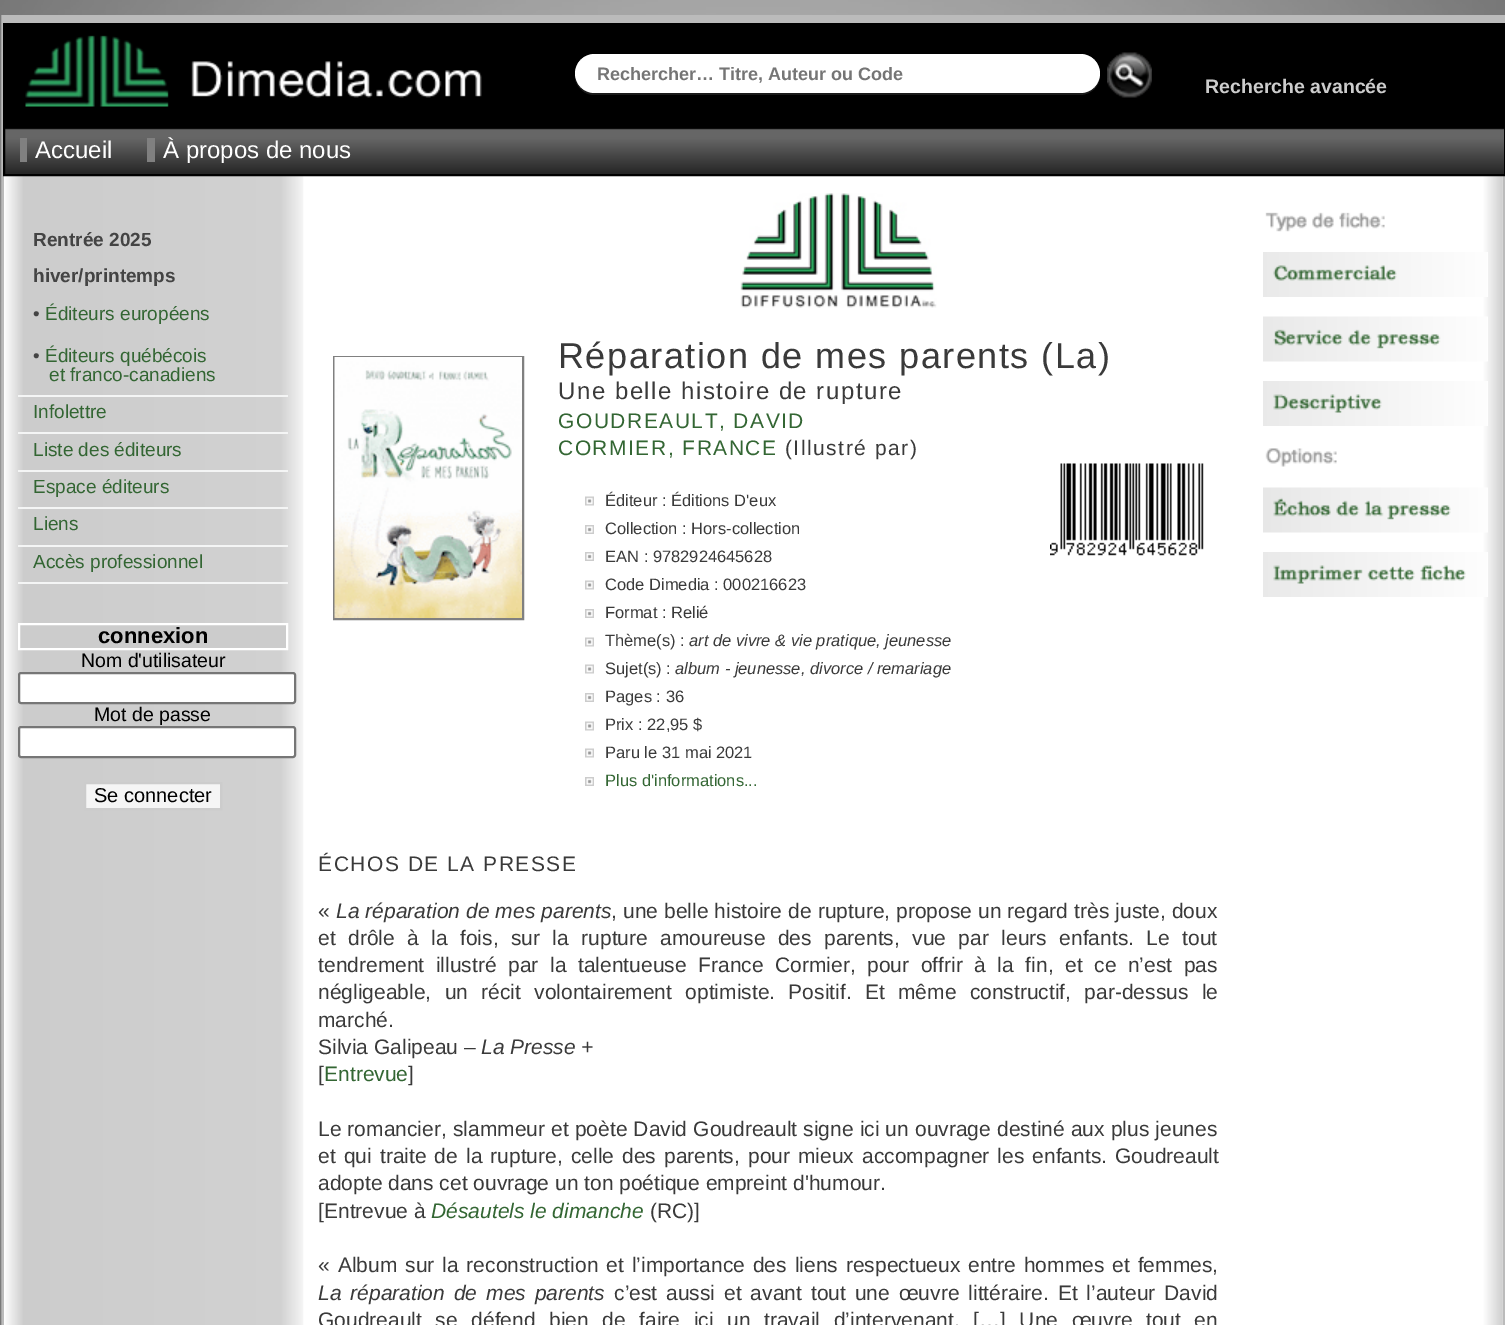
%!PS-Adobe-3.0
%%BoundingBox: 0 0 1505 1325
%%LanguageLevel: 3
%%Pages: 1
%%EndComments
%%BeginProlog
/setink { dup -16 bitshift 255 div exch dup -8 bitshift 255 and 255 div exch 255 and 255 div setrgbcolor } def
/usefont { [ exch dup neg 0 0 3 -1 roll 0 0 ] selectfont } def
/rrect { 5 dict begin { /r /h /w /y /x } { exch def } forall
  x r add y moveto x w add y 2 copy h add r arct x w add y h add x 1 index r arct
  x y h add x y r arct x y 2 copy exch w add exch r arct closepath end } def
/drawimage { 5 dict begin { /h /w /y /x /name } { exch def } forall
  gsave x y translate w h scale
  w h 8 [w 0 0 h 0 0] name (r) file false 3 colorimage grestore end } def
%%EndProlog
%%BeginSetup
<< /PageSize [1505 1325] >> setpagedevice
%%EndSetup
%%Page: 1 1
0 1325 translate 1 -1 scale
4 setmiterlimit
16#FFFFFF setink
0 0 1505 1325 rectfill
(img1.raw) 0 0 1505 1325 drawimage
(img2.raw) 1 15 1502 1310 drawimage
[
    [2 15 1503 8 16#BBBBBB]
    [1503 15 2 1310 16#BBBBBB]
    [2 15 2 1310 16#BBBBBB]
    [5 25 1499 10 16#000000]
] { aload pop setink rectfill } forall
(img3.raw) 5 35 1499 139 drawimage
2 setlinewidth
4 24 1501 151 rectstroke
16#1A1A1A setink
575 79 moveto 577 88 585 95 594 95 curveto 1080 95 lineto 1091 95 1100 86 1100 76 curveto 1099 70 lineto 1100 74 lineto 1100 84 1091 93 1080 93 curveto 594 93 lineto 585 93 578 87 575 79 curveto closepath fill
16#FFFFFF setink
575 54 525 39 19.5 rrect fill
/LiberationSans-Bold 18 usefont
16#757575 setink
597 80 moveto (Rechercher… Titre, Auteur ou Code) show
(img4.raw) 1107 52 45 46 drawimage
/LiberationSans-Bold 19.5 usefont
16#CCCCCC setink
1205 93 moveto (Recherche avancée) show
/LiberationSans-Regular 24 usefont
16#FFFFFF setink
35 158 moveto (Accueil) show
16#808080 setink
20 138 7 24 rectfill
16#FFFFFF setink
163 158 moveto (À propos de nous) show
16#808080 setink
147 138 8 24 rectfill
16#F4F5F5 setink
18 395 270 2 rectfill
/LiberationSans-Bold 19 usefont
16#444444 setink
33 246 moveto (Rentrée 2025) show
33 282 moveto (hiver/printemps) show
/LiberationSans-Regular 19 usefont
33 320 moveto (•) show
16#336633 setink
45 320 moveto (Éditeurs européens) show
16#444444 setink
33 362 moveto (•) show
16#336633 setink
45 362 moveto (Éditeurs québécois) show
49 381 moveto (et franco-canadiens) show
16#F4F5F5 setink
18 432 270 2 rectfill
16#336633 setink
33 418 moveto (Infolettre) show
16#F4F5F5 setink
18 470 270 2 rectfill
16#336633 setink
33 456 moveto (Liste des éditeurs) show
16#F4F5F5 setink
18 507 270 2 rectfill
16#336633 setink
33 493 moveto (Espace éditeurs) show
16#F4F5F5 setink
18 545 270 2 rectfill
16#336633 setink
33 530 moveto (Liens) show
16#F4F5F5 setink
18 582 270 2 rectfill
16#336633 setink
33 568 moveto (Accès professionnel) show
16#CCCCCC setink
19 624 moveto 287 624 lineto 287 649 lineto 19 649 lineto closepath gsave fill grestore
16#FFFFFF setink
stroke
/LiberationSans-Bold 22 usefont
16#000000 setink
98 643 moveto (connexion) show
/LiberationSans-Regular 19.5 usefont
81 667 moveto (Nom d'utilisateur) show
16#FFFFFF setink
19 673 276 30 2 rrect gsave fill grestore
16#767676 setink
stroke
16#000000 setink
94 721 moveto (Mot de passe) show
16#FFFFFF setink
19 727 276 30 2 rrect gsave fill grestore
16#767676 setink
stroke
16#F5F5F5 setink
85 783 moveto 221 783 lineto 221 809 lineto 85 809 lineto closepath gsave fill grestore
16#CCCCCC setink
stroke
/LiberationSans-Regular 20 usefont
16#000000 setink
94 802 moveto (Se connecter) show
16#808080 setink
334 357 189 262 rectstroke
(img5.raw) 334 357 188 261 drawimage
(img6.raw) 740 193 197 115 drawimage
/LiberationSans-Regular 36 usefont
16#3A3A3A setink
558 368 moveto 1.5 0 (Réparation de mes parents \(La\)) ashow
/LiberationSans-Regular 24 usefont
558 399 moveto 1.5 0 (Une belle histoire de rupture) ashow
/LiberationSans-Regular 21 usefont
16#336633 setink
558 428 moveto 1.5 0 (GOUDREAULT, DAVID) ashow
558 455 moveto 1.5 0 (CORMIER, FRANCE) ashow
16#3A3A3A setink
785 455 moveto 1.5 0 (\(Illustré par\)) ashow
(img7.raw) 585 496 9 10 drawimage
/LiberationSans-Regular 16.5 usefont
605 506 moveto (Éditeur : Éditions D'eux) show
(img8.raw) 585 525 9 9 drawimage
605 534 moveto (Collection : Hors-collection) show
(img8.raw) 585 552 9 9 drawimage
605 562 moveto (EAN : 9782924645628) show
(img7.raw) 585 580 9 10 drawimage
605 590 moveto (Code Dimedia : 000216623) show
(img8.raw) 585 609 9 9 drawimage
605 618 moveto (Format : Relié) show
(img7.raw) 585 637 9 10 drawimage
605 646 moveto (Thème\(s\) :) show
/LiberationSans-Italic 16.5 usefont
689 646 moveto (art de vivre & vie pratique, jeunesse) show
(img7.raw) 585 664 9 10 drawimage
/LiberationSans-Regular 16.5 usefont
605 674 moveto (Sujet\(s\) :) show
/LiberationSans-Italic 16.5 usefont
675 674 moveto (album - jeunesse, divorce / remariage) show
(img8.raw) 585 693 9 9 drawimage
/LiberationSans-Regular 16.5 usefont
605 702 moveto (Pages : 36) show
(img7.raw) 585 721 9 10 drawimage
605 730 moveto (Prix : 22,95 $) show
(img7.raw) 585 748 9 10 drawimage
605 758 moveto (Paru le 31 mai 2021) show
(img8.raw) 585 777 9 9 drawimage
16#336633 setink
605 786 moveto (Plus d'informations...) show
(img9.raw) 1050 463 154 93 drawimage
/LiberationSans-Regular 21 usefont
16#3A3A3A setink
318 871 moveto 1.5 0 (ÉCHOS DE LA PRESSE) ashow
318 918 moveto («) show
/LiberationSans-Italic 21 usefont
336 918 moveto 0.25 0 32 (La réparation de mes parents) widthshow
/LiberationSans-Regular 21 usefont
611 918 moveto 0.25 0 32 (, une belle histoire de rupture, propose un regard très juste, doux) widthshow
318 945 moveto 6.6 0 32 (et drôle à la fois, sur la rupture amoureuse des parents, vue par leurs enfants. Le tout) widthshow
318 972 moveto 5.75 0 32 (tendrement illustré par la talentueuse France Cormier, pour offrir à la fin, et ce n’est pas) widthshow
318 999 moveto 7.5 0 32 (négligeable, un récit volontairement optimiste. Positif. Et même constructif, par-dessus le) widthshow
318 1027 moveto (marché.) show
318 1054 moveto (Silvia Galipeau –) show
/LiberationSans-Italic 21 usefont
481 1054 moveto (La Presse +) show
/LiberationSans-Regular 21 usefont
318 1081 moveto ([) show
16#336633 setink
324 1081 moveto (Entrevue) show
16#3A3A3A setink
408 1081 moveto (]) show
318 1136 moveto 0.3 0 32 (Le romancier, slammeur et poète David Goudreault signe ici un ouvrage destiné aux plus jeunes) widthshow
318 1163 moveto 2.25 0 32 (et qui traite de la rupture, celle des parents, pour mieux accompagner les enfants. Goudreault) widthshow
318 1190 moveto (adopte dans cet ouvrage un ton poétique empreint d'humour.) show
318 1218 moveto ([Entrevue à) show
/LiberationSans-Italic 21 usefont
16#336633 setink
431 1218 moveto (Désautels le dimanche) show
/LiberationSans-Regular 21 usefont
16#3A3A3A setink
650 1218 moveto (\(RC\)]) show
318 1272 moveto 2.1 0 32 (« Album sur la reconstruction et l’importance des liens respectueux entre hommes et femmes,) widthshow
/LiberationSans-Italic 21 usefont
318 1300 moveto 3.1 0 32 (La réparation de mes parents) widthshow
/LiberationSans-Regular 21 usefont
614 1300 moveto 3.1 0 32 (c’est aussi et avant tout une œuvre littéraire. Et l’auteur David) widthshow
318 1327 moveto 7.75 0 32 (Goudreault se défend bien de faire ici un travail d’intervenant. […] Une œuvre tout en) widthshow
(img10.raw) 1265 212 120 20 drawimage
(img11.raw) 1263 252 225 45 drawimage
(img12.raw) 1263 316 225 46 drawimage
(img13.raw) 1263 381 225 45 drawimage
(img14.raw) 1265 448 72 19 drawimage
(img15.raw) 1263 487 225 46 drawimage
(img16.raw) 1263 552 225 45 drawimage
showpage
%%EOF
